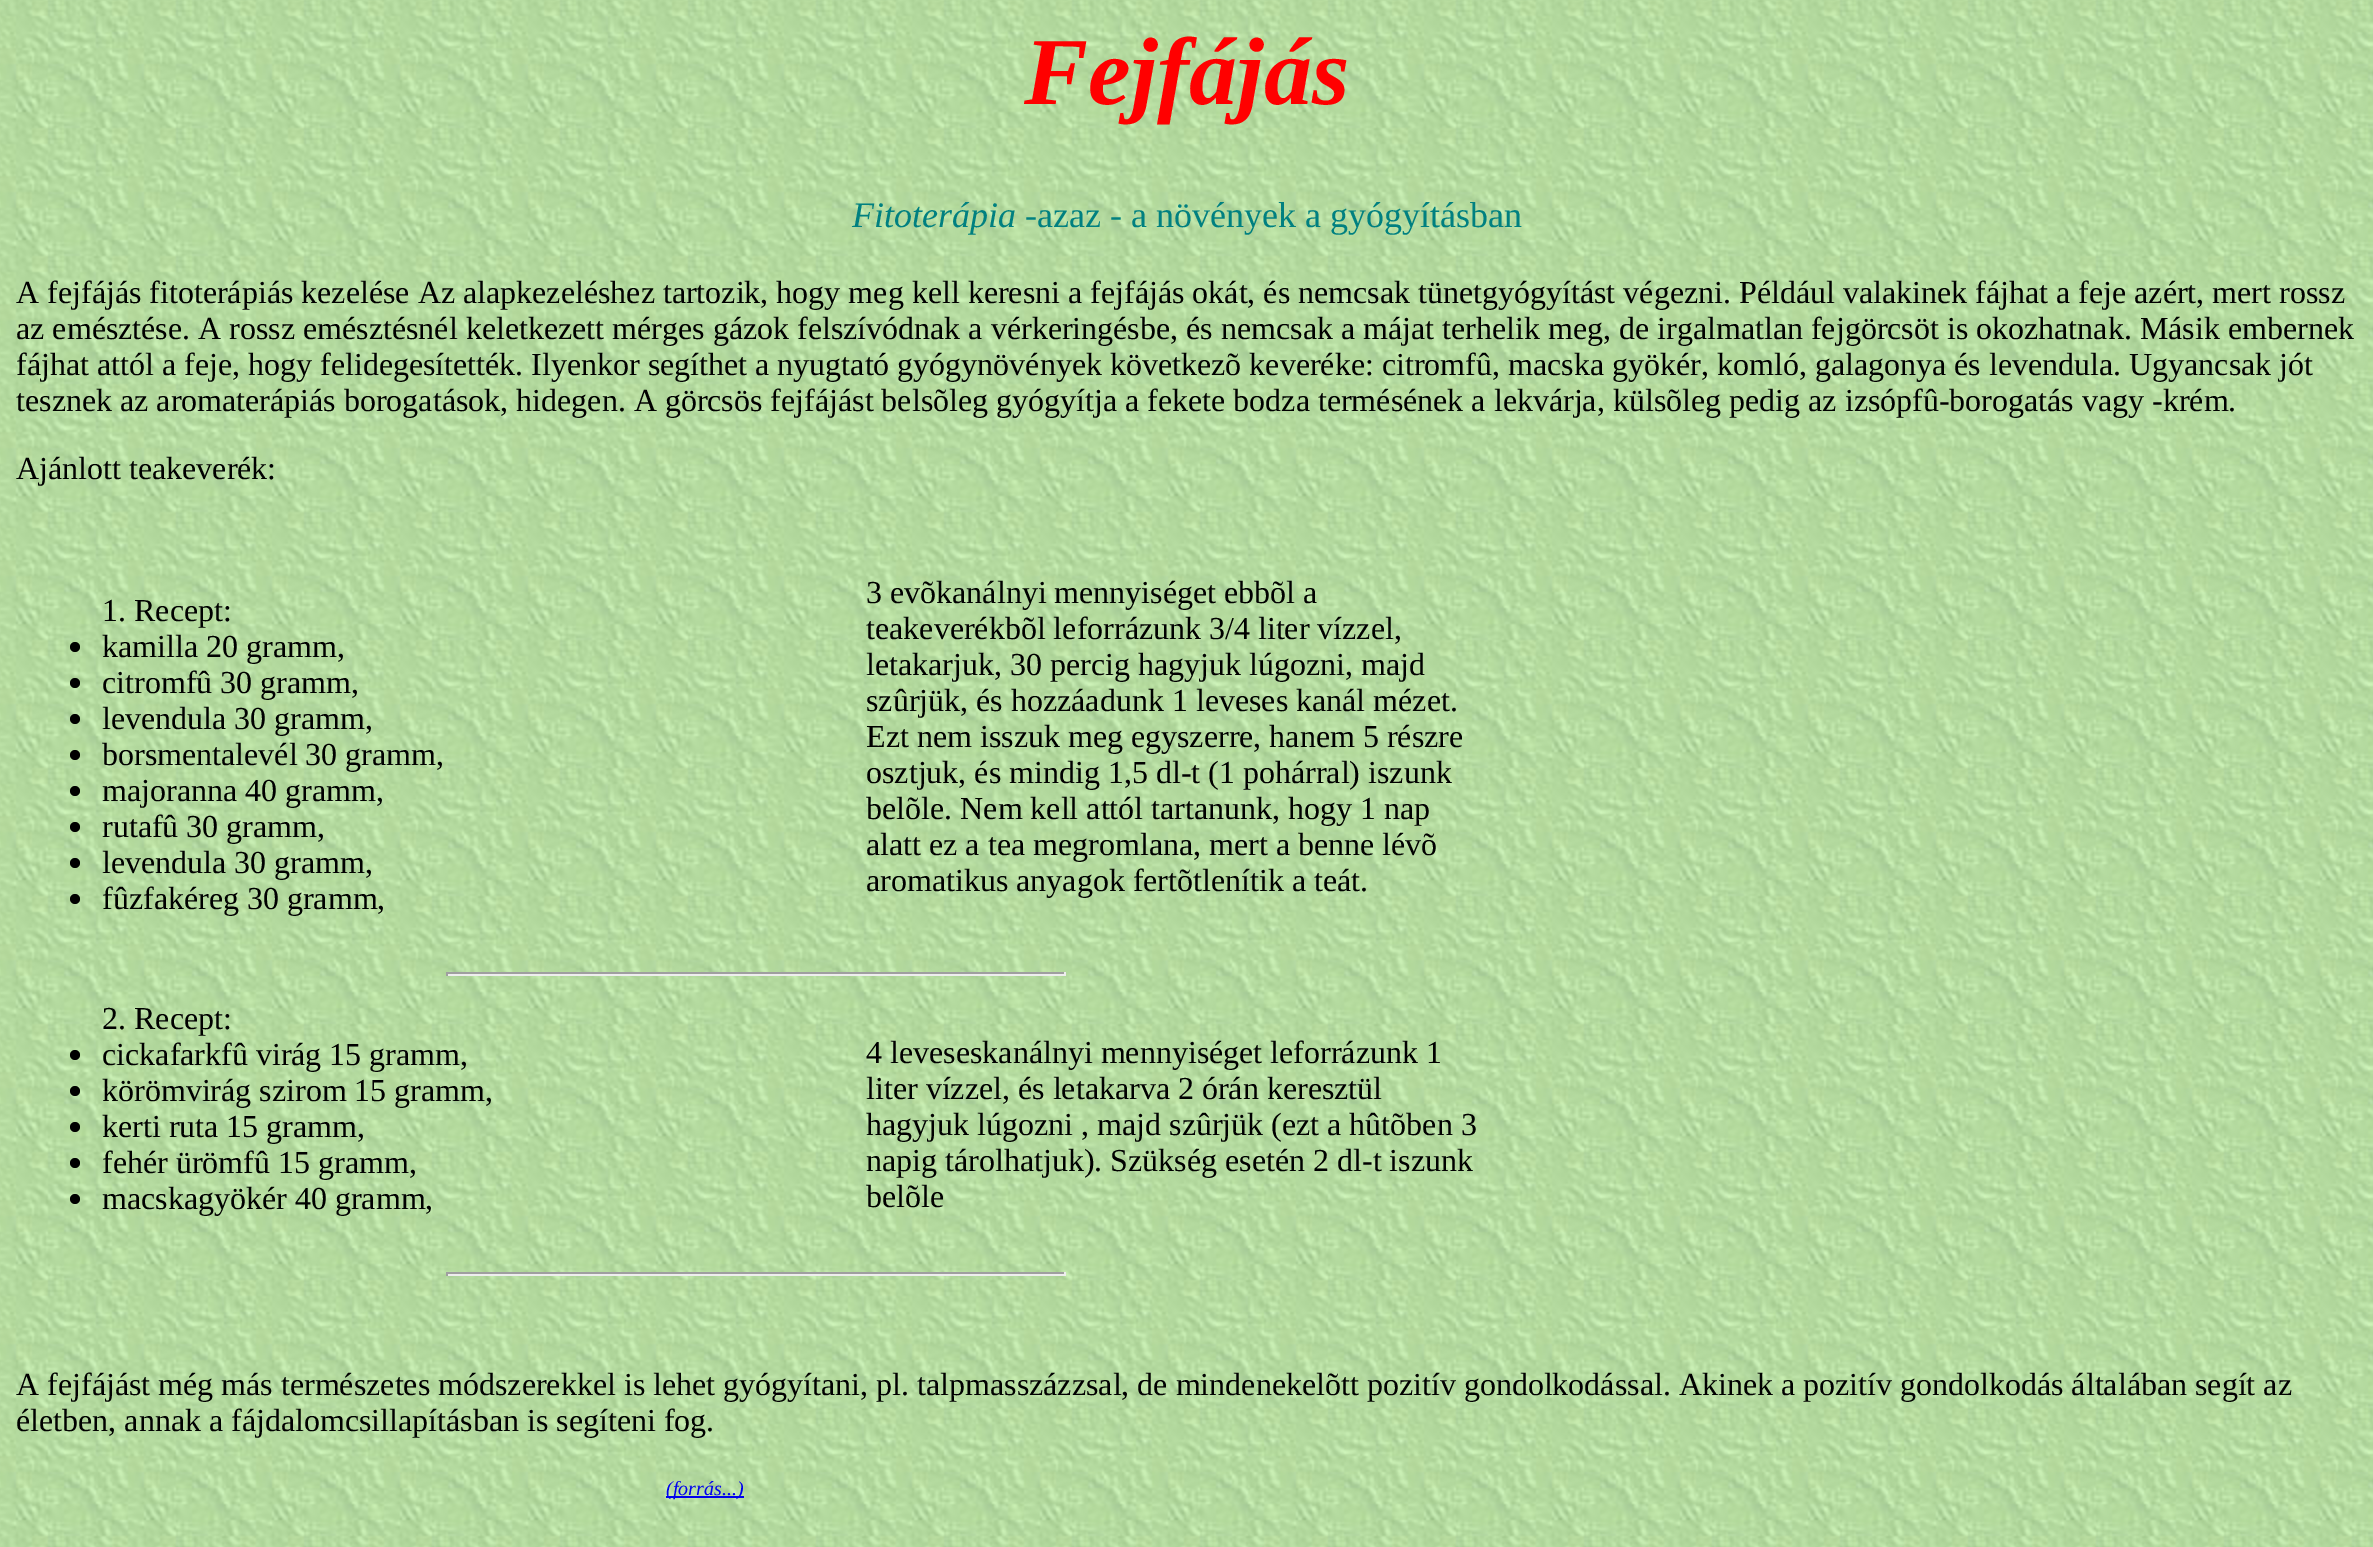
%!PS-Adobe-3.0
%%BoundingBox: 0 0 2373 1547
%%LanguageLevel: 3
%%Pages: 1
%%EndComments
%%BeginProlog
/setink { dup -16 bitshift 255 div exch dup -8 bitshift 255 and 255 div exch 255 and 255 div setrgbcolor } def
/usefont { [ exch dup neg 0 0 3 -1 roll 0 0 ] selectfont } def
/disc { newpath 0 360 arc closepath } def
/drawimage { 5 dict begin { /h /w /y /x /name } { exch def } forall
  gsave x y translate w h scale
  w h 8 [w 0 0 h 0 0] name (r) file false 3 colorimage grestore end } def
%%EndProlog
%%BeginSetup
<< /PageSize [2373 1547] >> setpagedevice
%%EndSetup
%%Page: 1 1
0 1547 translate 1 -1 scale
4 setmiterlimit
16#FFFFFF setink
0 0 2373 1547 rectfill
(img1.raw) 0 0 2373 1547 drawimage
/LiberationSerif-BoldItalic 96 usefont
16#FF0000 setink
1024 104 moveto (Fejfájás) show
/LiberationSerif-Italic 36 usefont
16#008080 setink
852 227 moveto (Fitoterápia) show
/LiberationSerif-Regular 36 usefont
1025 227 moveto (-azaz - a növények a gyógyításban) show
/LiberationSerif-Regular 32 usefont
16#000000 setink
[
    [(A fejfájás fitoterápiás kezelése Az alapkezeléshez tartozik, hogy meg kell keresni a fejfájás okát, és nemcsak tünetgyógyítást végezni. Például valakinek fájhat a feje azért, mert rossz) 16 303]
    [(az emésztése. A rossz emésztésnél keletkezett mérges gázok felszívódnak a vérkeringésbe, és nemcsak a májat terhelik meg, de irgalmatlan fejgörcsöt is okozhatnak. Másik embernek) 16 339]
    [(fájhat attól a feje, hogy felidegesítették. Ilyenkor segíthet a nyugtató gyógynövények következõ keveréke: citromfû, macska gyökér, komló, galagonya és levendula. Ugyancsak jót) 16 375]
    [(tesznek az aromaterápiás borogatások, hidegen. A görcsös fejfájást belsõleg gyógyítja a fekete bodza termésének a lekvárja, külsõleg pedig az izsópfû-borogatás vagy -krém.) 16 411]
    [(Ajánlott teakeverék:) 16 479]
    [(1. Recept:) 102 621]
] { aload pop moveto show } forall
75 647 5 disc fill
102 657 moveto (kamilla 20 gramm,) show
75 683 5 disc fill
102 693 moveto (citromfû 30 gramm,) show
75 719 5 disc fill
102 729 moveto (levendula 30 gramm,) show
75 755 5 disc fill
102 765 moveto (borsmentalevél 30 gramm,) show
75 791 5 disc fill
102 801 moveto (majoranna 40 gramm,) show
75 827 5 disc fill
102 837 moveto (rutafû 30 gramm,) show
75 863 5 disc fill
102 873 moveto (levendula 30 gramm,) show
75 899 5 disc fill
[
    [(fûzfakéreg 30 gramm,) 102 909]
    [(3 evõkanálnyi mennyiséget ebbõl a) 866 603]
    [(teakeverékbõl leforrázunk 3/4 liter vízzel,) 866 639]
    [(letakarjuk, 30 percig hagyjuk lúgozni, majd) 866 675]
    [(szûrjük, és hozzáadunk 1 leveses kanál mézet.) 866 711]
    [(Ezt nem isszuk meg egyszerre, hanem 5 részre) 866 747]
    [(osztjuk, és mindig 1,5 dl-t \(1 pohárral\) iszunk) 866 783]
    [(belõle. Nem kell attól tartanunk, hogy 1 nap) 866 819]
    [(alatt ez a tea megromlana, mert a benne lévõ) 866 855]
    [(aromatikus anyagok fertõtlenítik a teát.) 866 891]
] { aload pop moveto show } forall
[
    [446 972 620 2 16#9F9F9F]
    [1064 972 2 4 16#EEEEEE]
    [446 974 620 2 16#EEEEEE]
    [446 972 2 4 16#9F9F9F]
] { aload pop setink rectfill } forall
16#000000 setink
102 1029 moveto (2. Recept:) show
75 1055 5 disc fill
102 1065 moveto (cickafarkfû virág 15 gramm,) show
75 1091 5 disc fill
102 1101 moveto (körömvirág szirom 15 gramm,) show
75 1127 5 disc fill
102 1137 moveto (kerti ruta 15 gramm,) show
75 1163 5 disc fill
102 1173 moveto (fehér ürömfû 15 gramm,) show
75 1199 5 disc fill
[
    [(macskagyökér 40 gramm,) 102 1209]
    [(4 leveseskanálnyi mennyiséget leforrázunk 1) 866 1063]
    [(liter vízzel, és letakarva 2 órán keresztül) 866 1099]
    [(hagyjuk lúgozni , majd szûrjük \(ezt a hûtõben 3) 866 1135]
    [(napig tárolhatjuk\). Szükség esetén 2 dl-t iszunk) 866 1171]
    [(belõle) 866 1207]
] { aload pop moveto show } forall
[
    [446 1272 620 2 16#9F9F9F]
    [1064 1272 2 4 16#EEEEEE]
    [446 1274 620 2 16#EEEEEE]
    [446 1272 2 4 16#9F9F9F]
] { aload pop setink rectfill } forall
16#000000 setink
16 1395 moveto (A fejfájást még más természetes módszerekkel is lehet gyógyítani, pl. talpmasszázzsal, de mindenekelõtt pozitív gondolkodással. Akinek a pozitív gondolkodás általában segít az) show
16 1431 moveto (életben, annak a fájdalomcsillapításban is segíteni fog.) show
16#0000EE setink
666 1496 78 2 rectfill
/LiberationSerif-Italic 20 usefont
666 1495 moveto (\(forrás...\)) show
showpage
%%EOF
